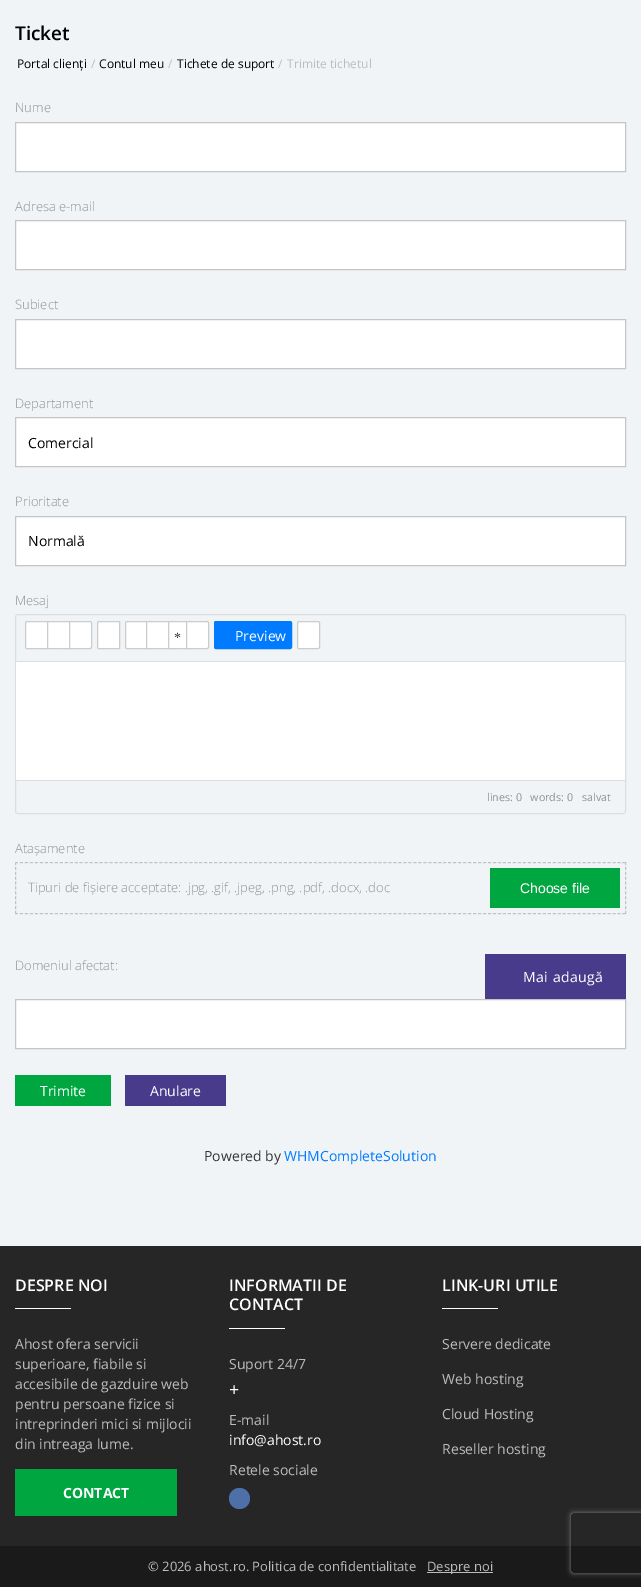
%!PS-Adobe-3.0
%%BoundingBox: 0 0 641 1587
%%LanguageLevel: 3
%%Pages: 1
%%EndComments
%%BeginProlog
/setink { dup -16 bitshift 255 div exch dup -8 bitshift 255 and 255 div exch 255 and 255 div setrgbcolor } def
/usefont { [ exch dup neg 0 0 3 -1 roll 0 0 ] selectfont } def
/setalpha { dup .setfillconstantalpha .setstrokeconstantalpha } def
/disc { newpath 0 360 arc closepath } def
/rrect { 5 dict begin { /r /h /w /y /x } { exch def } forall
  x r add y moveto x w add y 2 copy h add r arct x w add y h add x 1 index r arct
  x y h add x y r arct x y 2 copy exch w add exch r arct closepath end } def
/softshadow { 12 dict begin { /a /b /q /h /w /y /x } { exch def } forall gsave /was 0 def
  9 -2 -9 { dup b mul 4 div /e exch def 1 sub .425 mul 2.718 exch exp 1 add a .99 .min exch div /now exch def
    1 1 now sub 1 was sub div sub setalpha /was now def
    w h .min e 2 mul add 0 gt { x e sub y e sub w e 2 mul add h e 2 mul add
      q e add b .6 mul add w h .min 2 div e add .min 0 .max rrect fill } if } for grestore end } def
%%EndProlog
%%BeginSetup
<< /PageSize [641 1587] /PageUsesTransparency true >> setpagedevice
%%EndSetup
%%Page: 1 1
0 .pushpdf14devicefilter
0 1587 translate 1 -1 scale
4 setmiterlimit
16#F0F4F6 setink
0 0 641 1587 rectfill
/OpenSans-SemiBold 19 usefont
16#000000 setink
15 40 moveto (Ticket) show
/OpenSans-Regular 12 usefont
17 68 moveto (Portal clienți) show
16#BCBCBC setink
91 68 moveto (/) show
16#000000 setink
99 68 moveto (Contul meu) show
16#BCBCBC setink
168 68 moveto (/) show
16#000000 setink
177 68 moveto (Tichete de suport) show
16#BCBCBC setink
278 68 moveto (/) show
287 68 moveto (Trimite tichetul) show
/OpenSans-Light 13 usefont
16#919191 setink
15 112 moveto (Nume) show
16#FFFFFF setink
15.5 122.5 moveto 625.5 122.5 lineto 625.5 171.5 lineto 15.5 171.5 lineto closepath gsave fill grestore
16#C5C5C5 setink
stroke
16#919191 setink
15 211 moveto (Adresa e-mail) show
16#FFFFFF setink
15.5 220.5 moveto 625.5 220.5 lineto 625.5 269.5 lineto 15.5 269.5 lineto closepath gsave fill grestore
16#C5C5C5 setink
stroke
16#919191 setink
15 309 moveto (Subiect) show
16#FFFFFF setink
15.5 319.5 moveto 625.5 319.5 lineto 625.5 368.5 lineto 15.5 368.5 lineto closepath gsave fill grestore
16#C5C5C5 setink
stroke
16#919191 setink
15 408 moveto (Departament) show
16#FFFFFF setink
15.5 417.5 moveto 625.5 417.5 lineto 625.5 466.5 lineto 15.5 466.5 lineto closepath gsave fill grestore
16#C5C5C5 setink
stroke
/OpenSans-Regular 14 usefont
16#000000 setink
28 448 moveto (Comercial) show
/OpenSans-Light 13 usefont
16#919191 setink
15 506 moveto (Prioritate) show
16#FFFFFF setink
15.5 516.5 moveto 625.5 516.5 lineto 625.5 565.5 lineto 15.5 565.5 lineto closepath gsave fill grestore
16#C5C5C5 setink
stroke
/OpenSans-Regular 14 usefont
16#000000 setink
28 546 moveto (Normală) show
/OpenSans-Light 13 usefont
16#919191 setink
15 605 moveto (Mesaj) show
16#DDDDDD setink
15.5 614.5 610 199 2.5 rrect stroke
16#FFFFFF setink
27 621.5 moveto 47.5 621.5 lineto 47.5 648.5 lineto 27 648.5 lineto 26 648.5 25.5 648 25.5 647 curveto 25.5 623 lineto 25.5 622 26 621.5 27 621.5 curveto closepath gsave fill grestore
16#CCCCCC setink
stroke
16#FFFFFF setink
47.5 621.5 moveto 69.5 621.5 lineto 69.5 648.5 lineto 47.5 648.5 lineto closepath gsave fill grestore
16#CCCCCC setink
stroke
16#FFFFFF setink
69.5 621.5 moveto 90 621.5 lineto 91 621.5 91.5 622 91.5 623 curveto 91.5 647 lineto 91.5 648 91 648.5 90 648.5 curveto 69.5 648.5 lineto closepath gsave fill grestore
16#CCCCCC setink
stroke
16#FFFFFF setink
99 621.5 moveto 119.5 621.5 lineto 119.5 648.5 lineto 99 648.5 lineto 98 648.5 97.5 648 97.5 647 curveto 97.5 623 lineto 97.5 622 98 621.5 99 621.5 curveto closepath gsave fill grestore
16#CCCCCC setink
stroke
16#FFFFFF setink
127 621.5 moveto 146.5 621.5 lineto 146.5 648.5 lineto 127 648.5 lineto 126 648.5 125.5 648 125.5 647 curveto 125.5 623 lineto 125.5 622 126 621.5 127 621.5 curveto closepath gsave fill grestore
16#CCCCCC setink
stroke
16#FFFFFF setink
146.5 621.5 moveto 168.5 621.5 lineto 168.5 648.5 lineto 146.5 648.5 lineto closepath gsave fill grestore
16#CCCCCC setink
stroke
16#FFFFFF setink
168.5 621.5 moveto 186.5 621.5 lineto 186.5 648.5 lineto 168.5 648.5 lineto closepath gsave fill grestore
16#CCCCCC setink
stroke
/LiberationSerif-Regular 14 usefont
16#333333 setink
174 642 moveto (*) show
16#FFFFFF setink
186.5 621.5 moveto 207 621.5 lineto 208 621.5 208.5 622 208.5 623 curveto 208.5 647 lineto 208.5 648 208 648.5 207 648.5 curveto 186.5 648.5 lineto closepath gsave fill grestore
16#CCCCCC setink
stroke
16#007BFF setink
214.5 621.5 77 27 1.5 rrect gsave fill grestore
stroke
/OpenSans-Regular 14 usefont
16#FFFFFF setink
235 641 moveto (Preview) show
297.5 621.5 22 27 1.5 rrect gsave fill grestore
16#CCCCCC setink
stroke
[
    [16 662 609 118 16#FFFFFF]
    [16 661 609 1 16#DDDDDD]
    [16 780 609 1 16#DDDDDD]
] { aload pop setink rectfill } forall
/OpenSans-Regular 10.75 usefont
16#919191 setink
487 801 moveto (lines: 0   words: 0) show
582 801 moveto (salvat) show
/OpenSans-Light 13 usefont
15 853 moveto (Atașamente) show
16#C0C3C5 setink
[3 1.98] 0 setdash
15 862.5 moveto 626 862.5 lineto stroke
[3 1.9] 0 setdash
625.5 862 moveto 625.5 914 lineto stroke
[3 1.98] 0 setdash
15 913.5 moveto 626 913.5 lineto stroke
[3 1.9] 0 setdash
15.5 862 moveto 15.5 914 lineto stroke
16#919191 setink
28 892 moveto (Tipuri de fișiere acceptate: .jpg, .gif, .jpeg, .png, .pdf, .docx, .doc) show
16#00A63F setink
490 868 130 40 rectfill
/LiberationSans-Regular 14 usefont
16#FFFFFF setink
520 893 moveto (Choose file) show
/OpenSans-Light 13 usefont
16#919191 setink
15 970 moveto (Domeniul afectat:) show
16#FFFFFF setink
15.5 999.5 moveto 625.5 999.5 lineto 625.5 1048.5 lineto 15.5 1048.5 lineto closepath gsave fill grestore
16#C5C5C5 setink
[] 0 setdash
stroke
16#493B8B setink
485 954 141 45 rectfill
/OpenSans-Regular 14 usefont
16#FFFFFF setink
523 982 moveto 0.5 0 (Mai adaugă) ashow
16#00A63F setink
15 1075 96 31 rectfill
16#FFFFFF setink
40 1096 moveto (Trimite) show
16#493B8B setink
125 1075 101 31 rectfill
16#FFFFFF setink
150 1096 moveto (Anulare) show
16#262626 setink
0 1246 641 300 rectfill
16#1A1A1A setink
0 1546 641 41 rectfill
gsave
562 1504 moveto 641 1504 lineto 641 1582 lineto 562 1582 lineto closepath 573 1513 moveto 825 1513 lineto 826 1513 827 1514 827 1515 curveto 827 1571 lineto 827 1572 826 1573 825 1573 curveto 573 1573 lineto 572 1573 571 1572 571 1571 curveto 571 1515 lineto 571 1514 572 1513 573 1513 curveto closepath eoclip newpath
16#808080 setink
571 1513 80 60 2 2.5 1 softshadow
grestore
16#333333 setink
204 1161 moveto (Powered by) show
16#007BFF setink
284 1161 moveto (WHMCompleteSolution) show
/OpenSans-SemiBold 16 usefont
16#FFFFFF setink
15 1291 moveto (DESPRE NOI) show
15 1308 56 1 rectfill
/OpenSans-Regular 14 usefont
16#BCBCBC setink
[
    [(Ahost ofera servicii) 15 1349]
    [(superioare, fiabile si) 15 1369]
    [(accesibile de gazduire web) 15 1389]
    [(pentru persoane fizice si) 15 1409]
    [(intreprinderi mici si mijlocii) 15 1429]
    [(din intreaga lume.) 15 1449]
] { aload pop moveto show } forall
16#00A63F setink
15 1469 162 47 rectfill
/OpenSans-Bold 14 usefont
16#FFFFFF setink
63 1498 moveto (CONTACT) show
/OpenSans-SemiBold 16 usefont
229 1291 moveto (INFORMATII DE) show
229 1310 moveto (CONTACT) show
229 1328 56 1 rectfill
/OpenSans-Regular 14 usefont
16#BCBCBC setink
229 1369 moveto (Suport 24/7) show
/OpenSans-Regular 18 usefont
16#FFFFFF setink
229 1396 moveto (+) show
/OpenSans-Regular 14 usefont
16#BCBCBC setink
229 1425 moveto (E-mail) show
16#FFFFFF setink
229 1445 moveto (info@ahost.ro) show
16#BCBCBC setink
229 1475 moveto (Retele sociale) show
16#4D70A8 setink
239.5 1498.5 10.5 disc fill
/OpenSans-SemiBold 16 usefont
16#FFFFFF setink
442 1291 moveto (LINK-URI UTILE) show
442 1308 56 1 rectfill
/OpenSans-Regular 14 usefont
16#BCBCBC setink
[
    [(Servere dedicate) 442 1349]
    [(Web hosting) 442 1384]
    [(Cloud Hosting) 442 1419]
    [(Reseller hosting) 442 1454]
] { aload pop moveto show } forall
/OpenSans-Regular 13 usefont
148 1571 moveto (© 2026 ahost.ro. Politica de confidentialitate) show
427 1572 66 1 rectfill
427 1571 moveto (Despre noi) show
.poppdf14devicefilter showpage
%%EOF
